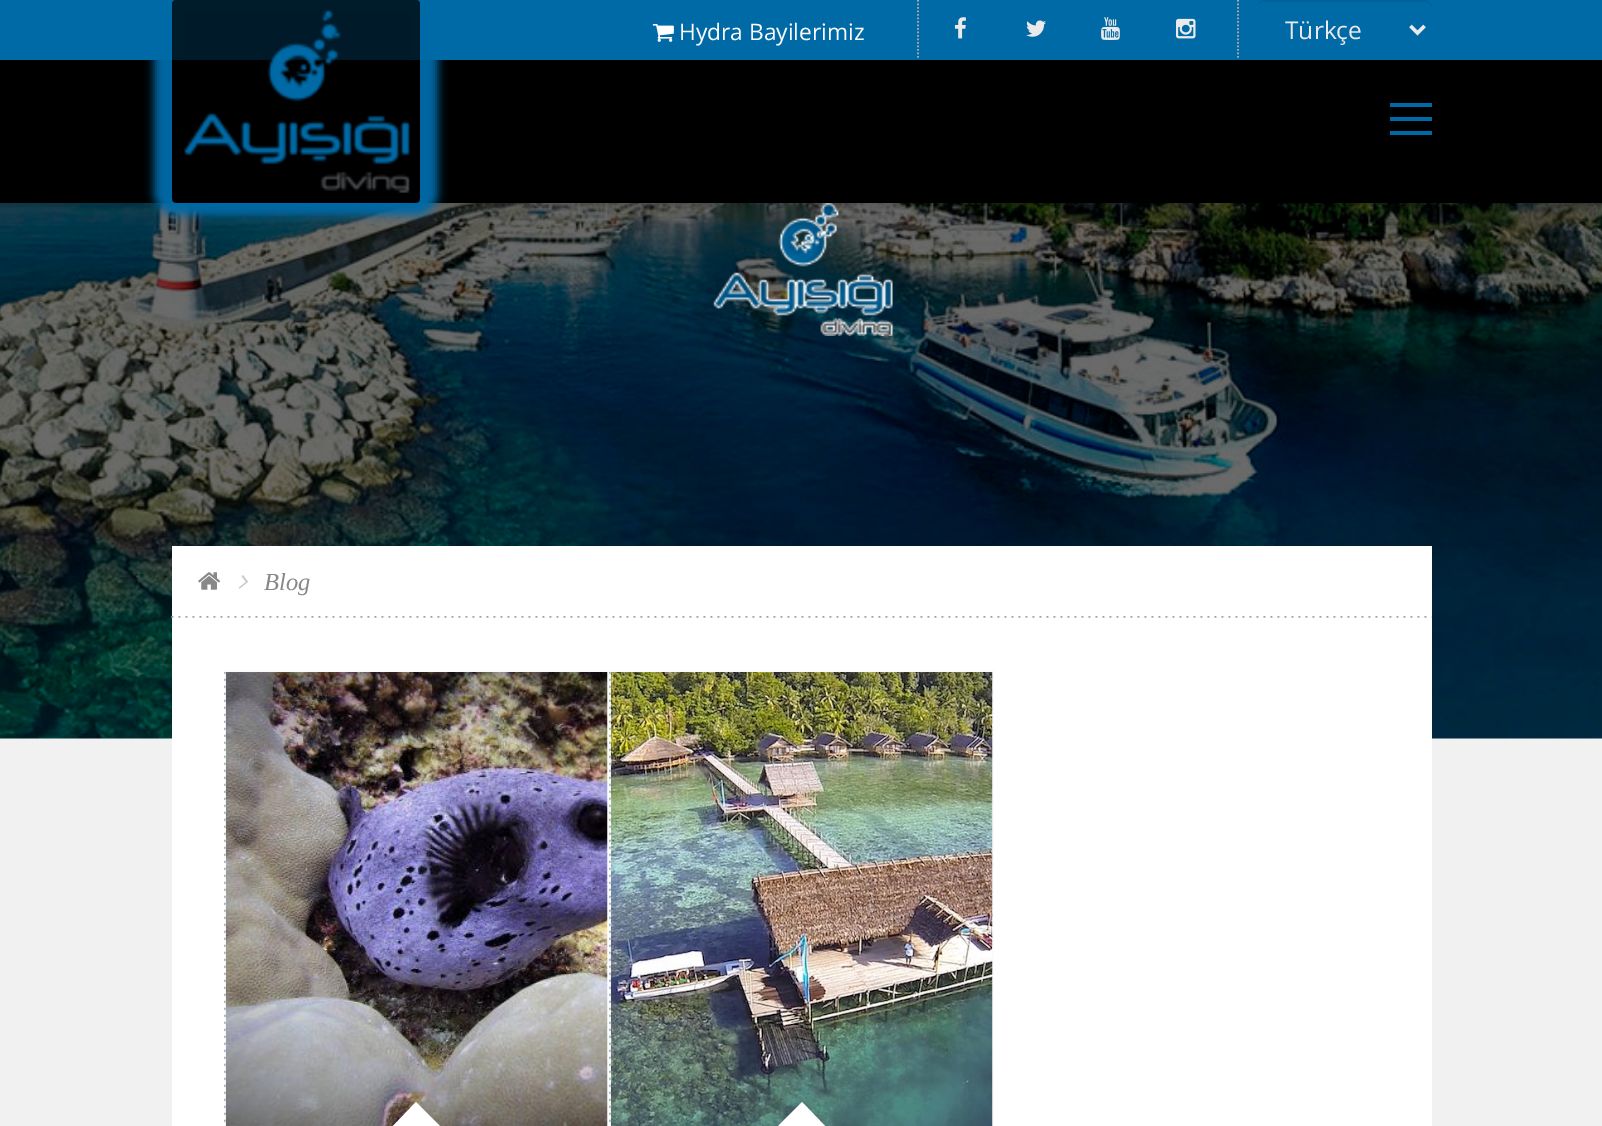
%!PS-Adobe-3.0
%%BoundingBox: 0 0 1602 1126
%%LanguageLevel: 3
%%Pages: 1
%%EndComments
%%BeginProlog
/setink { dup -16 bitshift 255 div exch dup -8 bitshift 255 and 255 div exch 255 and 255 div setrgbcolor } def
/usefont { [ exch dup neg 0 0 3 -1 roll 0 0 ] selectfont } def
/setalpha { dup .setfillconstantalpha .setstrokeconstantalpha } def
/rrect { 5 dict begin { /r /h /w /y /x } { exch def } forall
  x r add y moveto x w add y 2 copy h add r arct x w add y h add x 1 index r arct
  x y h add x y r arct x y 2 copy exch w add exch r arct closepath end } def
/softshadow { 12 dict begin { /a /b /q /h /w /y /x } { exch def } forall gsave /was 0 def
  9 -2 -9 { dup b mul 4 div /e exch def 1 sub .425 mul 2.718 exch exp 1 add a .99 .min exch div /now exch def
    1 1 now sub 1 was sub div sub setalpha /was now def
    w h .min e 2 mul add 0 gt { x e sub y e sub w e 2 mul add h e 2 mul add
      q e add b .6 mul add w h .min 2 div e add .min 0 .max rrect fill } if } for grestore end } def
/drawimage { 5 dict begin { /h /w /y /x /name } { exch def } forall
  gsave x y translate w h scale
  w h 8 [w 0 0 h 0 0] name (r) file false 3 colorimage grestore end } def
%%EndProlog
%%BeginSetup
<< /PageSize [1602 1126] /PageUsesTransparency true >> setpagedevice
%%EndSetup
%%Page: 1 1
0 .pushpdf14devicefilter
0 1126 translate 1 -1 scale
4 setmiterlimit
16#F1F1F1 setink
0 0 1602 1126 rectfill
(img7.raw) 0 203 1602 536 drawimage
(img8.raw) 713 203 180 133 drawimage
16#000000 setink
0 2 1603 203 0 3.5 0.2 softshadow
0 60 1602 143 rectfill
16#006AA6 setink
0 0 1602 60 rectfill
gsave
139 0 moveto 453 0 lineto 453 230 lineto 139 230 lineto closepath 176 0 moveto 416 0 lineto 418 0 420 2 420 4 curveto 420 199 lineto 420 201 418 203 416 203 curveto 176 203 lineto 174 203 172 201 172 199 curveto 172 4 lineto 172 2 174 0 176 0 curveto closepath eoclip newpath
16#0069A6 setink
154 -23 284 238 21 4.5 1 softshadow
grestore
0.75 setalpha
16#000000 setink
172 0 248 203 4 rrect fill
1 setalpha
(img1.raw) 184 10 226 183 drawimage
[
    [1390 103 42 4 16#006AA6]
    [1390 131 42 4 16#006AA6]
    [1390 117 42 4 16#006AA6]
] { aload pop setink rectfill } forall
(img2.raw) 652 24 22 18 drawimage
/OpenSans-Regular 22.75 usefont
16#FFFFFF setink
679 40 moveto (Hydra Bayilerimiz) show
16#A5A5A5 setink
1.8 setlinewidth
[1.75 1.75] 0 setdash
918 0 moveto 918 59.5 lineto stroke
(img3.raw) 954 17 12 22 drawimage
(img4.raw) 1026 20 20 17 drawimage
(img5.raw) 1101 17 19 23 drawimage
(img6.raw) 1176 18 20 21 drawimage
1238 0 moveto 1238 59.5 lineto stroke
16#00629A setink
1264 2 moveto 1424 2 lineto 1428 2 1432 5 1432 9 curveto 1432 7 lineto 1432 3 1429 0 1425 0 curveto 1264 0 lineto 1261 0 1258 2 1257 5 curveto 1259 3 1261 2 1264 2 curveto closepath fill
16#EAEAEA setink
3.5 setlinewidth
[] 0 setdash
1410.5 26 moveto 1417.5 33 lineto 1424.5 26 lineto stroke
gsave
1285 12 98 37 rectclip
/OpenSans-Regular 24.5 usefont
1285 39 moveto (Türkçe) show
grestore
16#FFFFFF setink
172 546 1260 580 rectfill
(img9.raw) 171 616 1261 2 drawimage
(img10.raw) 198 572 23 18 drawimage
(img11.raw) 238 575 10 14 drawimage
/LiberationSerif-Italic 24.5 usefont
16#888888 setink
264 590 moveto (Blog) show
16#FBFBFB setink
224 670 770 456 rectfill
(img12.raw) 224 672 2 451 drawimage
(img13.raw) 225 672 383 454 drawimage
16#FFFFFF setink
441 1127 moveto 392 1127 lineto 416 1102 lineto closepath fill
(img12.raw) 609 672 2 451 drawimage
(img14.raw) 610 672 383 454 drawimage
826 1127 moveto 777 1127 lineto 802 1102 lineto closepath fill
.poppdf14devicefilter showpage
%%EOF
